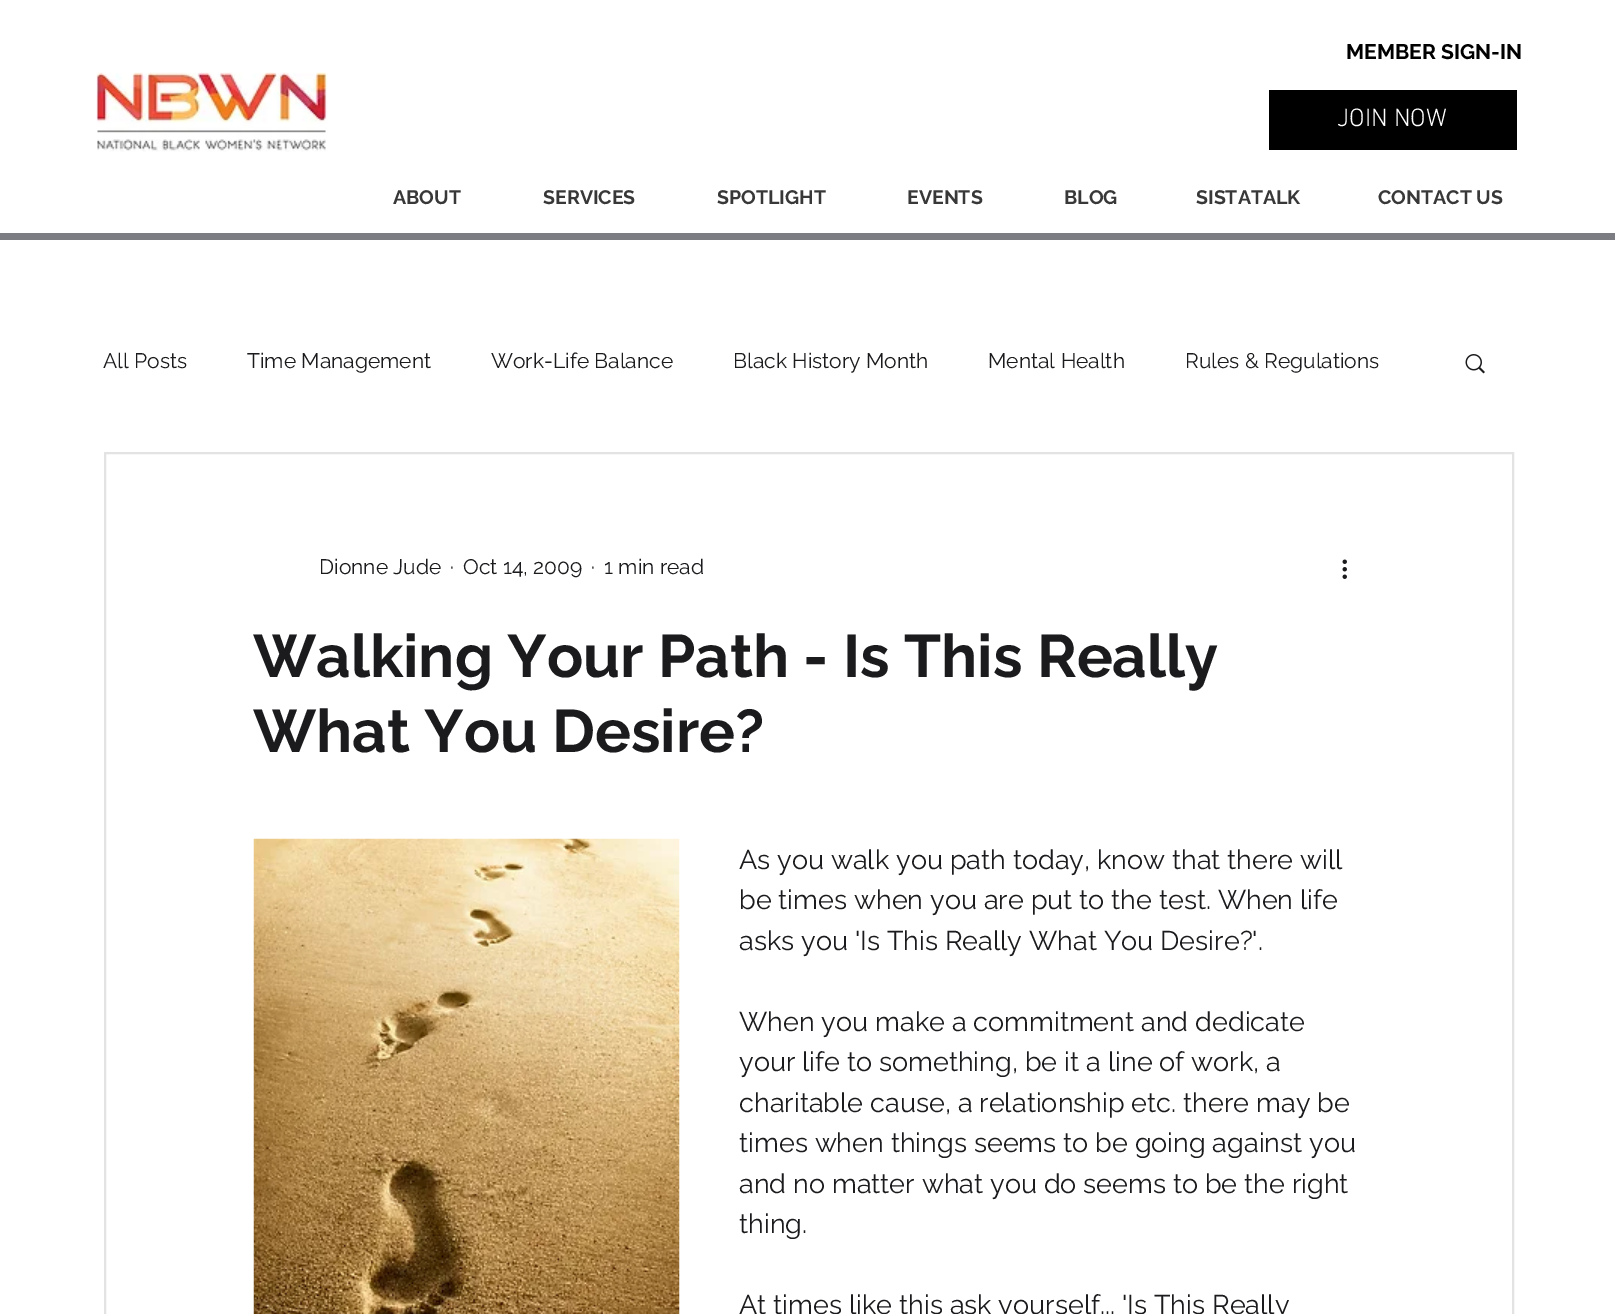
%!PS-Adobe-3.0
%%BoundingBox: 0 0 1615 1314
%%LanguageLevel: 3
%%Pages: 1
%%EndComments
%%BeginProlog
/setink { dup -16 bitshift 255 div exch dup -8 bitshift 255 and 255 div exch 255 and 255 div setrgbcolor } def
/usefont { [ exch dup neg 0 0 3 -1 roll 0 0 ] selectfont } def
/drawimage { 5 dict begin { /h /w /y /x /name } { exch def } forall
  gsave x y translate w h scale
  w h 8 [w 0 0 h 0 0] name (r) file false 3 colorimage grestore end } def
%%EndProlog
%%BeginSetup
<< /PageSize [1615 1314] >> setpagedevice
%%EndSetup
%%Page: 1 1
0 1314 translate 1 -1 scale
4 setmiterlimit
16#FFFFFF setink
0 0 1615 1314 rectfill
/Raleway-Bold 21 usefont
16#000000 setink
1346 59 moveto (MEMBER SIGN-IN) show
(img1.raw) 96 72 232 80 drawimage
1269 90 248 60 rectfill
/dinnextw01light-Light 25.5 usefont
16#FFFFFF setink
1337 126 moveto (JOIN NOW) show
/Raleway-Bold 19.5 usefont
16#383838 setink
[
    [(ABOUT) 393 204]
    [(SERVICES) 543 204]
    [(SPOTLIGHT) 717 204]
    [(EVENTS) 907 204]
    [(BLOG) 1064 204]
    [(SISTATALK) 1196 204]
    [(CONTACT US) 1378 204]
] { aload pop moveto show } forall
16#7C7C83 setink
0 233 1615 7 rectfill
/Raleway-Regular 21 usefont
16#1B1B1E setink
[
    [(All Posts) 103 368]
    [(Time Management) 247 368]
    [(Work-Life Balance) 491 368]
    [(Black History Month) 733 368]
    [(Mental Health) 988 368]
    [(Rules & Regulations) 1185 368]
] { aload pop moveto show } forall
(img2.raw) 1465 354 20 20 drawimage
16#E3E3E3 setink
2 setlinewidth
105 453 1408 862 rectstroke
16#1B1B1E setink
[
    [(Dionne Jude) 319 574]
    [(·) 450 574]
    [(Oct 14, 2009) 463 574]
    [(·) 591 574]
    [(1 min read) 604 574]
] { aload pop moveto show } forall
(img3.raw) 1342 559 5 20 drawimage
/Raleway-Bold 60 usefont
253 677 moveto (Walking Your Path - Is This Really) show
253 752 moveto (What You Desire?) show
(img4.raw) 253 838 427 476 drawimage
/Raleway-Regular 27 usefont
[
    [(As you walk you path today, know that there will) 739 869]
    [(be times when you are put to the test. When life) 739 909]
    [(asks you 'Is This Really What You Desire?'.) 739 950]
    [(When you make a commitment and dedicate) 739 1031]
    [(your life to something, be it a line of work, a) 739 1071]
    [(charitable cause, a relationship etc. there may be) 739 1112]
    [(times when things seems to be going against you) 739 1152]
    [(and no matter what you do seems to be the right) 739 1193]
    [(thing.) 739 1233]
    [(At times like this ask yourself... 'Is This Really) 739 1314]
] { aload pop moveto show } forall
showpage
%%EOF
